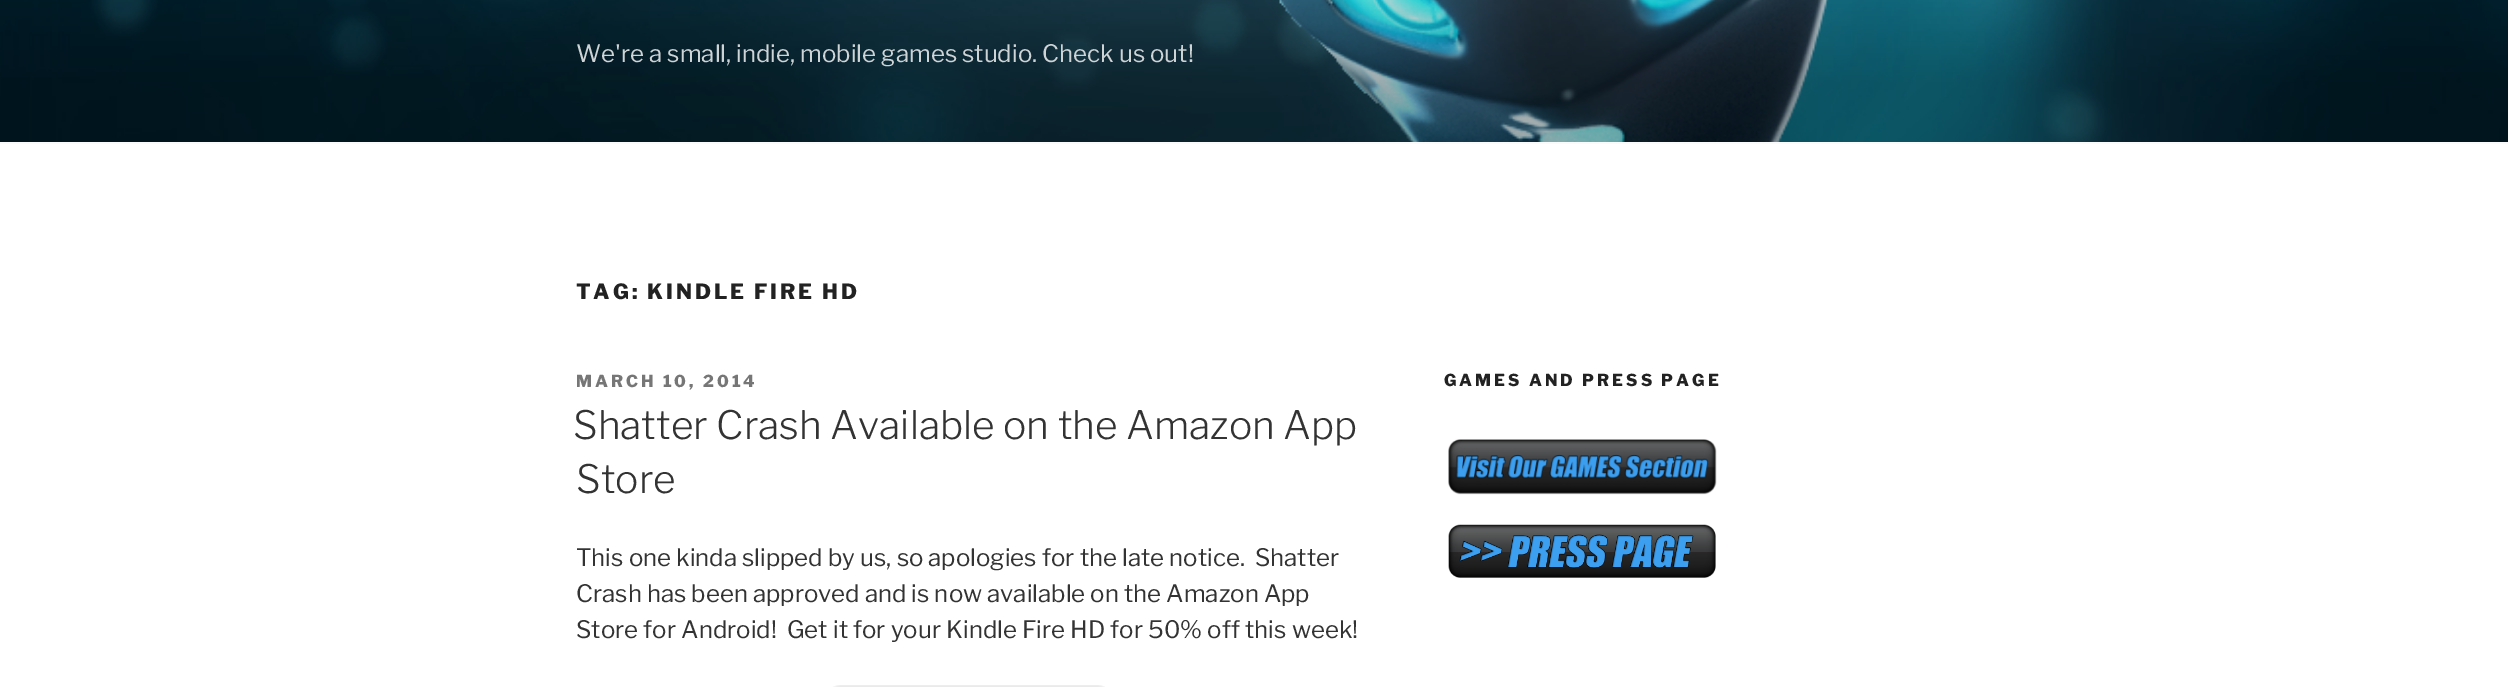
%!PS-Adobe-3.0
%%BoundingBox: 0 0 2508 687
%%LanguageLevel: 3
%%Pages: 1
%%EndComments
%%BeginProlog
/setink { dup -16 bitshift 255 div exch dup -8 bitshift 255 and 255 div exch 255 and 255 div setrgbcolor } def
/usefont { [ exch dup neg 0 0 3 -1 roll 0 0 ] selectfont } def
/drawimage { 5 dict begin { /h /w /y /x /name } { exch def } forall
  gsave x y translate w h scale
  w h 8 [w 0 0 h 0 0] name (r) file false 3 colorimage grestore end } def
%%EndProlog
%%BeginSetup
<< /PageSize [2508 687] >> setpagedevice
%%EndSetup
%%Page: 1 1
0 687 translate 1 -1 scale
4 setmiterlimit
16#FFFFFF setink
0 0 2508 687 rectfill
16#FAFAFA setink
0 142 2508 2 rectfill
(img1.raw) 0 0 2508 142 drawimage
/LibreFranklin-Regular 24 usefont
16#CED4D6 setink
576 62 moveto (We're a small, indie, mobile games studio. Check us out!) show
/LibreFranklin-ExtraBold 21 usefont
16#222222 setink
576 299 moveto 2.9 0 (TAG: KINDLE FIRE HD) ashow
/LibreFranklin-ExtraBold 16.5 usefont
16#767676 setink
576 387 moveto 3 0 (MARCH 10, 2014) ashow
/LibreFranklin-Light 39 usefont
16#333333 setink
573 439 moveto (Shatter Crash Available on the Amazon App) show
576 493 moveto (Store) show
/LibreFranklin-Regular 24 usefont
[
    [(This one kinda slipped by us, so apologies for the late notice.  Shatter) 576 566]
    [(Crash has been approved and is now available on the Amazon App) 576 602]
    [(Store for Android!  Get it for your Kindle Fire HD for 50% off this week!) 576 638]
] { aload pop moveto show } forall
(img2.raw) 833 685 272 2 drawimage
/LibreFranklin-ExtraBold 16.5 usefont
16#222222 setink
1444 386 moveto 3 0 (GAMES AND PRESS PAGE) ashow
(img3.raw) 1448 439 269 56 drawimage
(img4.raw) 1448 524 268 54 drawimage
showpage
%%EOF
